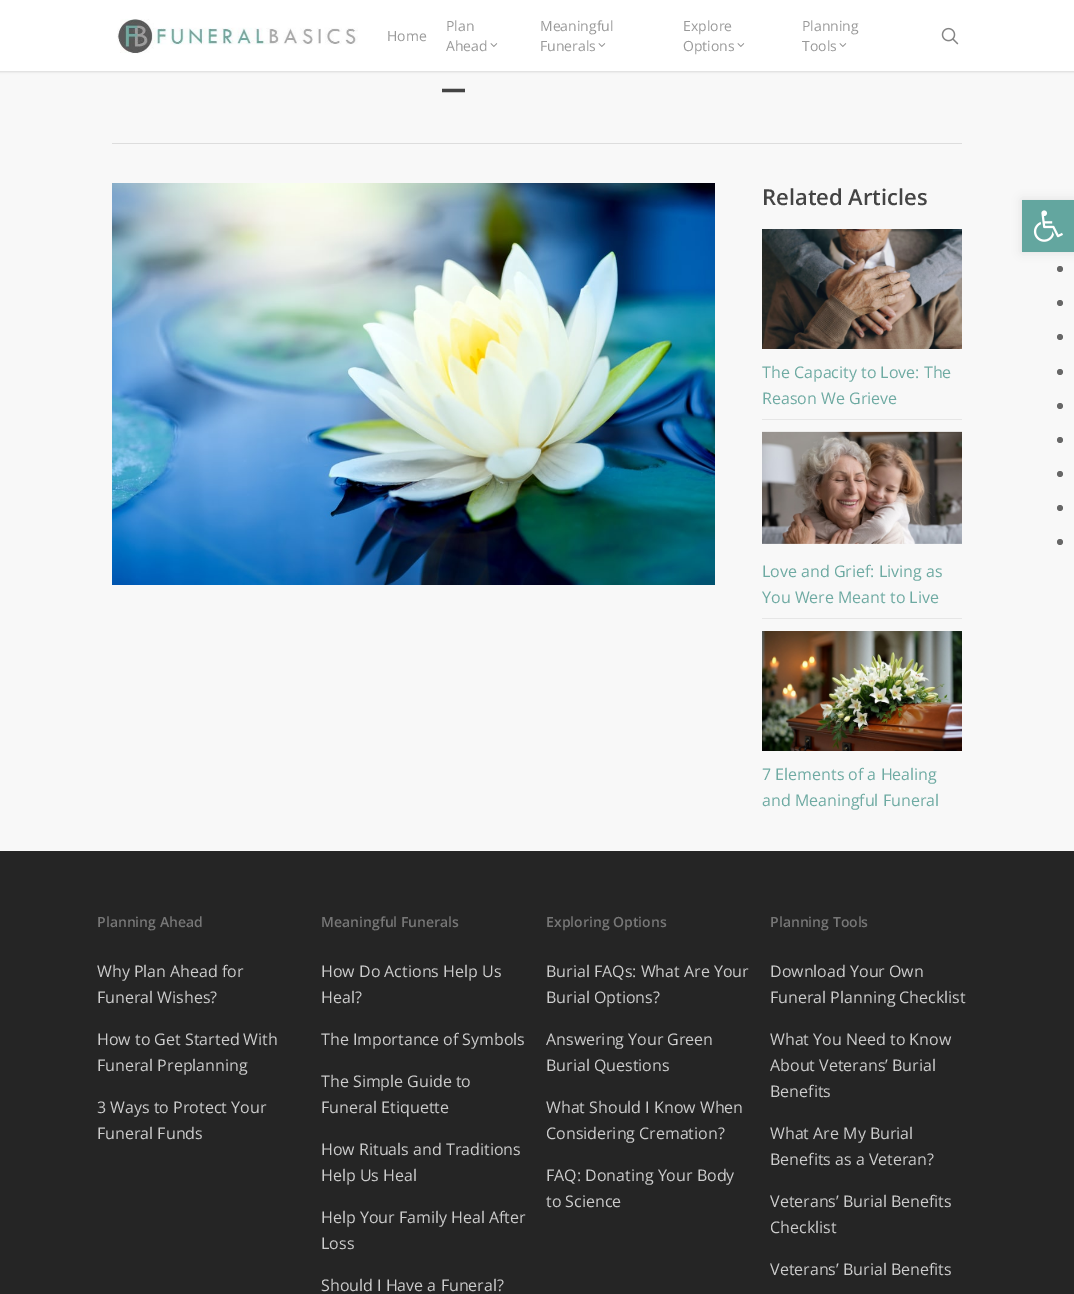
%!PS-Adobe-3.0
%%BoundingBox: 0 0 1074 1294
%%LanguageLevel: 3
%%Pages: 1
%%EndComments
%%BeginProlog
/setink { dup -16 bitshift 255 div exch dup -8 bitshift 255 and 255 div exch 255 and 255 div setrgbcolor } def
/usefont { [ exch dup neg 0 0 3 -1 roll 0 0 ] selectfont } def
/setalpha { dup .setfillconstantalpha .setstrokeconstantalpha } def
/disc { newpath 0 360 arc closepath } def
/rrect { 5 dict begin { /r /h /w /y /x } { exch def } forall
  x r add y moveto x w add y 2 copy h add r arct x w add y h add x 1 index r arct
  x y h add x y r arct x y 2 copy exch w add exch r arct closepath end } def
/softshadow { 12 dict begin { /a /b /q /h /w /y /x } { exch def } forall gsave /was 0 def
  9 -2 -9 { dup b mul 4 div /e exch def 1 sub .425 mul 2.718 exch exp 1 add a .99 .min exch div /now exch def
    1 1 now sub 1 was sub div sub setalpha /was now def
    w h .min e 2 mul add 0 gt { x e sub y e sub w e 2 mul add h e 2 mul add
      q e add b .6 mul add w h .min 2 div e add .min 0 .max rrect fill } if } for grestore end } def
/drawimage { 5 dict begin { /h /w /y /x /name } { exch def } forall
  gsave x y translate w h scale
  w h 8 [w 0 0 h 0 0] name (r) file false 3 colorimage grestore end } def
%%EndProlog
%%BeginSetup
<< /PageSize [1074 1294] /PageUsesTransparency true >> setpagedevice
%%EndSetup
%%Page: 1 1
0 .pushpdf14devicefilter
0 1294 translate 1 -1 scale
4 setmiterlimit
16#F8F8F8 setink
0 0 1074 1294 rectfill
16#000000 setink
0 0 1074 71 0 1.5 0.22 softshadow
16#FFFFFF setink
0 0 1074 71 rectfill
(img1.raw) 117 19 241 35 drawimage
/OpenSans-Regular 14 usefont
16#999999 setink
[
    [(Home) 387 41]
    [(Plan) 446 31]
    [(Ahead) 446 51]
] { aload pop moveto show } forall
(img2.raw) 490 43 8 4 drawimage
540 31 moveto (Meaningful) show
540 51 moveto (Funerals) show
(img2.raw) 598 43 8 4 drawimage
683 31 moveto (Explore) show
683 51 moveto (Options) show
(img2.raw) 737 43 8 4 drawimage
802 31 moveto (Planning) show
802 51 moveto (Tools) show
(img2.raw) 839 43 8 4 drawimage
(img3.raw) 941 27 18 18 drawimage
16#DDDDDD setink
112 143 850 1 rectfill
/OpenSans-SemiBold 54 usefont
16#444444 setink
442 84 moveto (_) show
(img4.raw) 112 183 603 402 drawimage
/OpenSans-SemiBold 22 usefont
762 205 moveto (Related Articles) show
16#E6E6E6 setink
762 419 200 1 rectfill
(img5.raw) 762 229 200 120 drawimage
/OpenSans-Regular 16 usefont
16#6EAAA2 setink
762 378 moveto (The Capacity to Love: The) show
762 404 moveto (Reason We Grieve) show
16#E6E6E6 setink
762 618 200 1 rectfill
(img6.raw) 762 431 200 113 drawimage
16#6EAAA2 setink
762 577 moveto (Love and Grief: Living as) show
762 603 moveto (You Were Meant to Live) show
(img7.raw) 762 631 200 120 drawimage
762 780 moveto (7 Elements of a Healing) show
762 806 moveto (and Meaningful Funeral) show
16#252525 setink
0 851 1074 443 rectfill
/OpenSans-SemiBold 14 usefont
16#777777 setink
97 927 moveto (Planning Ahead) show
/OpenSans-Regular 16 usefont
16#CCCCCC setink
[
    [(Why Plan Ahead for) 97 977]
    [(Funeral Wishes?) 97 1003]
    [(How to Get Started With) 97 1045]
    [(Funeral Preplanning) 97 1071]
    [(3 Ways to Protect Your) 97 1113]
    [(Funeral Funds) 97 1139]
] { aload pop moveto show } forall
/OpenSans-SemiBold 14 usefont
16#777777 setink
321 927 moveto (Meaningful Funerals) show
/OpenSans-Regular 16 usefont
16#CCCCCC setink
[
    [(How Do Actions Help Us) 321 977]
    [(Heal?) 321 1003]
    [(The Importance of Symbols) 321 1045]
    [(The Simple Guide to) 321 1087]
    [(Funeral Etiquette) 321 1113]
    [(How Rituals and Traditions) 321 1155]
    [(Help Us Heal) 321 1181]
    [(Help Your Family Heal After) 321 1223]
    [(Loss) 321 1249]
    [(Should I Have a Funeral?) 321 1291]
] { aload pop moveto show } forall
/OpenSans-SemiBold 14 usefont
16#777777 setink
546 927 moveto (Exploring Options) show
/OpenSans-Regular 16 usefont
16#CCCCCC setink
[
    [(Burial FAQs: What Are Your) 546 977]
    [(Burial Options?) 546 1003]
    [(Answering Your Green) 546 1045]
    [(Burial Questions) 546 1071]
    [(What Should I Know When) 546 1113]
    [(Considering Cremation?) 546 1139]
    [(FAQ: Donating Your Body) 546 1181]
    [(to Science) 546 1207]
] { aload pop moveto show } forall
/OpenSans-SemiBold 14 usefont
16#777777 setink
770 927 moveto (Planning Tools) show
/OpenSans-Regular 16 usefont
16#CCCCCC setink
[
    [(Download Your Own) 770 977]
    [(Funeral Planning Checklist) 770 1003]
    [(What You Need to Know) 770 1045]
    [(About Veterans’ Burial) 770 1071]
    [(Benefits) 770 1097]
    [(What Are My Burial) 770 1139]
    [(Benefits as a Veteran?) 770 1165]
    [(Veterans’ Burial Benefits) 770 1207]
    [(Checklist) 770 1233]
    [(Veterans’ Burial Benefits) 770 1275]
] { aload pop moveto show } forall
16#676767 setink
1060 269 3 disc fill
16#000000 setink
1022 200 52 52 0 5 0.1 softshadow
16#63A69F setink
1022 200 52 52 rectfill
(img8.raw) 1033 210 30 32 drawimage
16#676767 setink
1060 303 3 disc fill
1060 337 3 disc fill
1060 372 3 disc fill
1060 406 3 disc fill
1060 440 3 disc fill
1060 474 3 disc fill
1060 508 3 disc fill
1060 542 3 disc fill
.poppdf14devicefilter showpage
%%EOF
